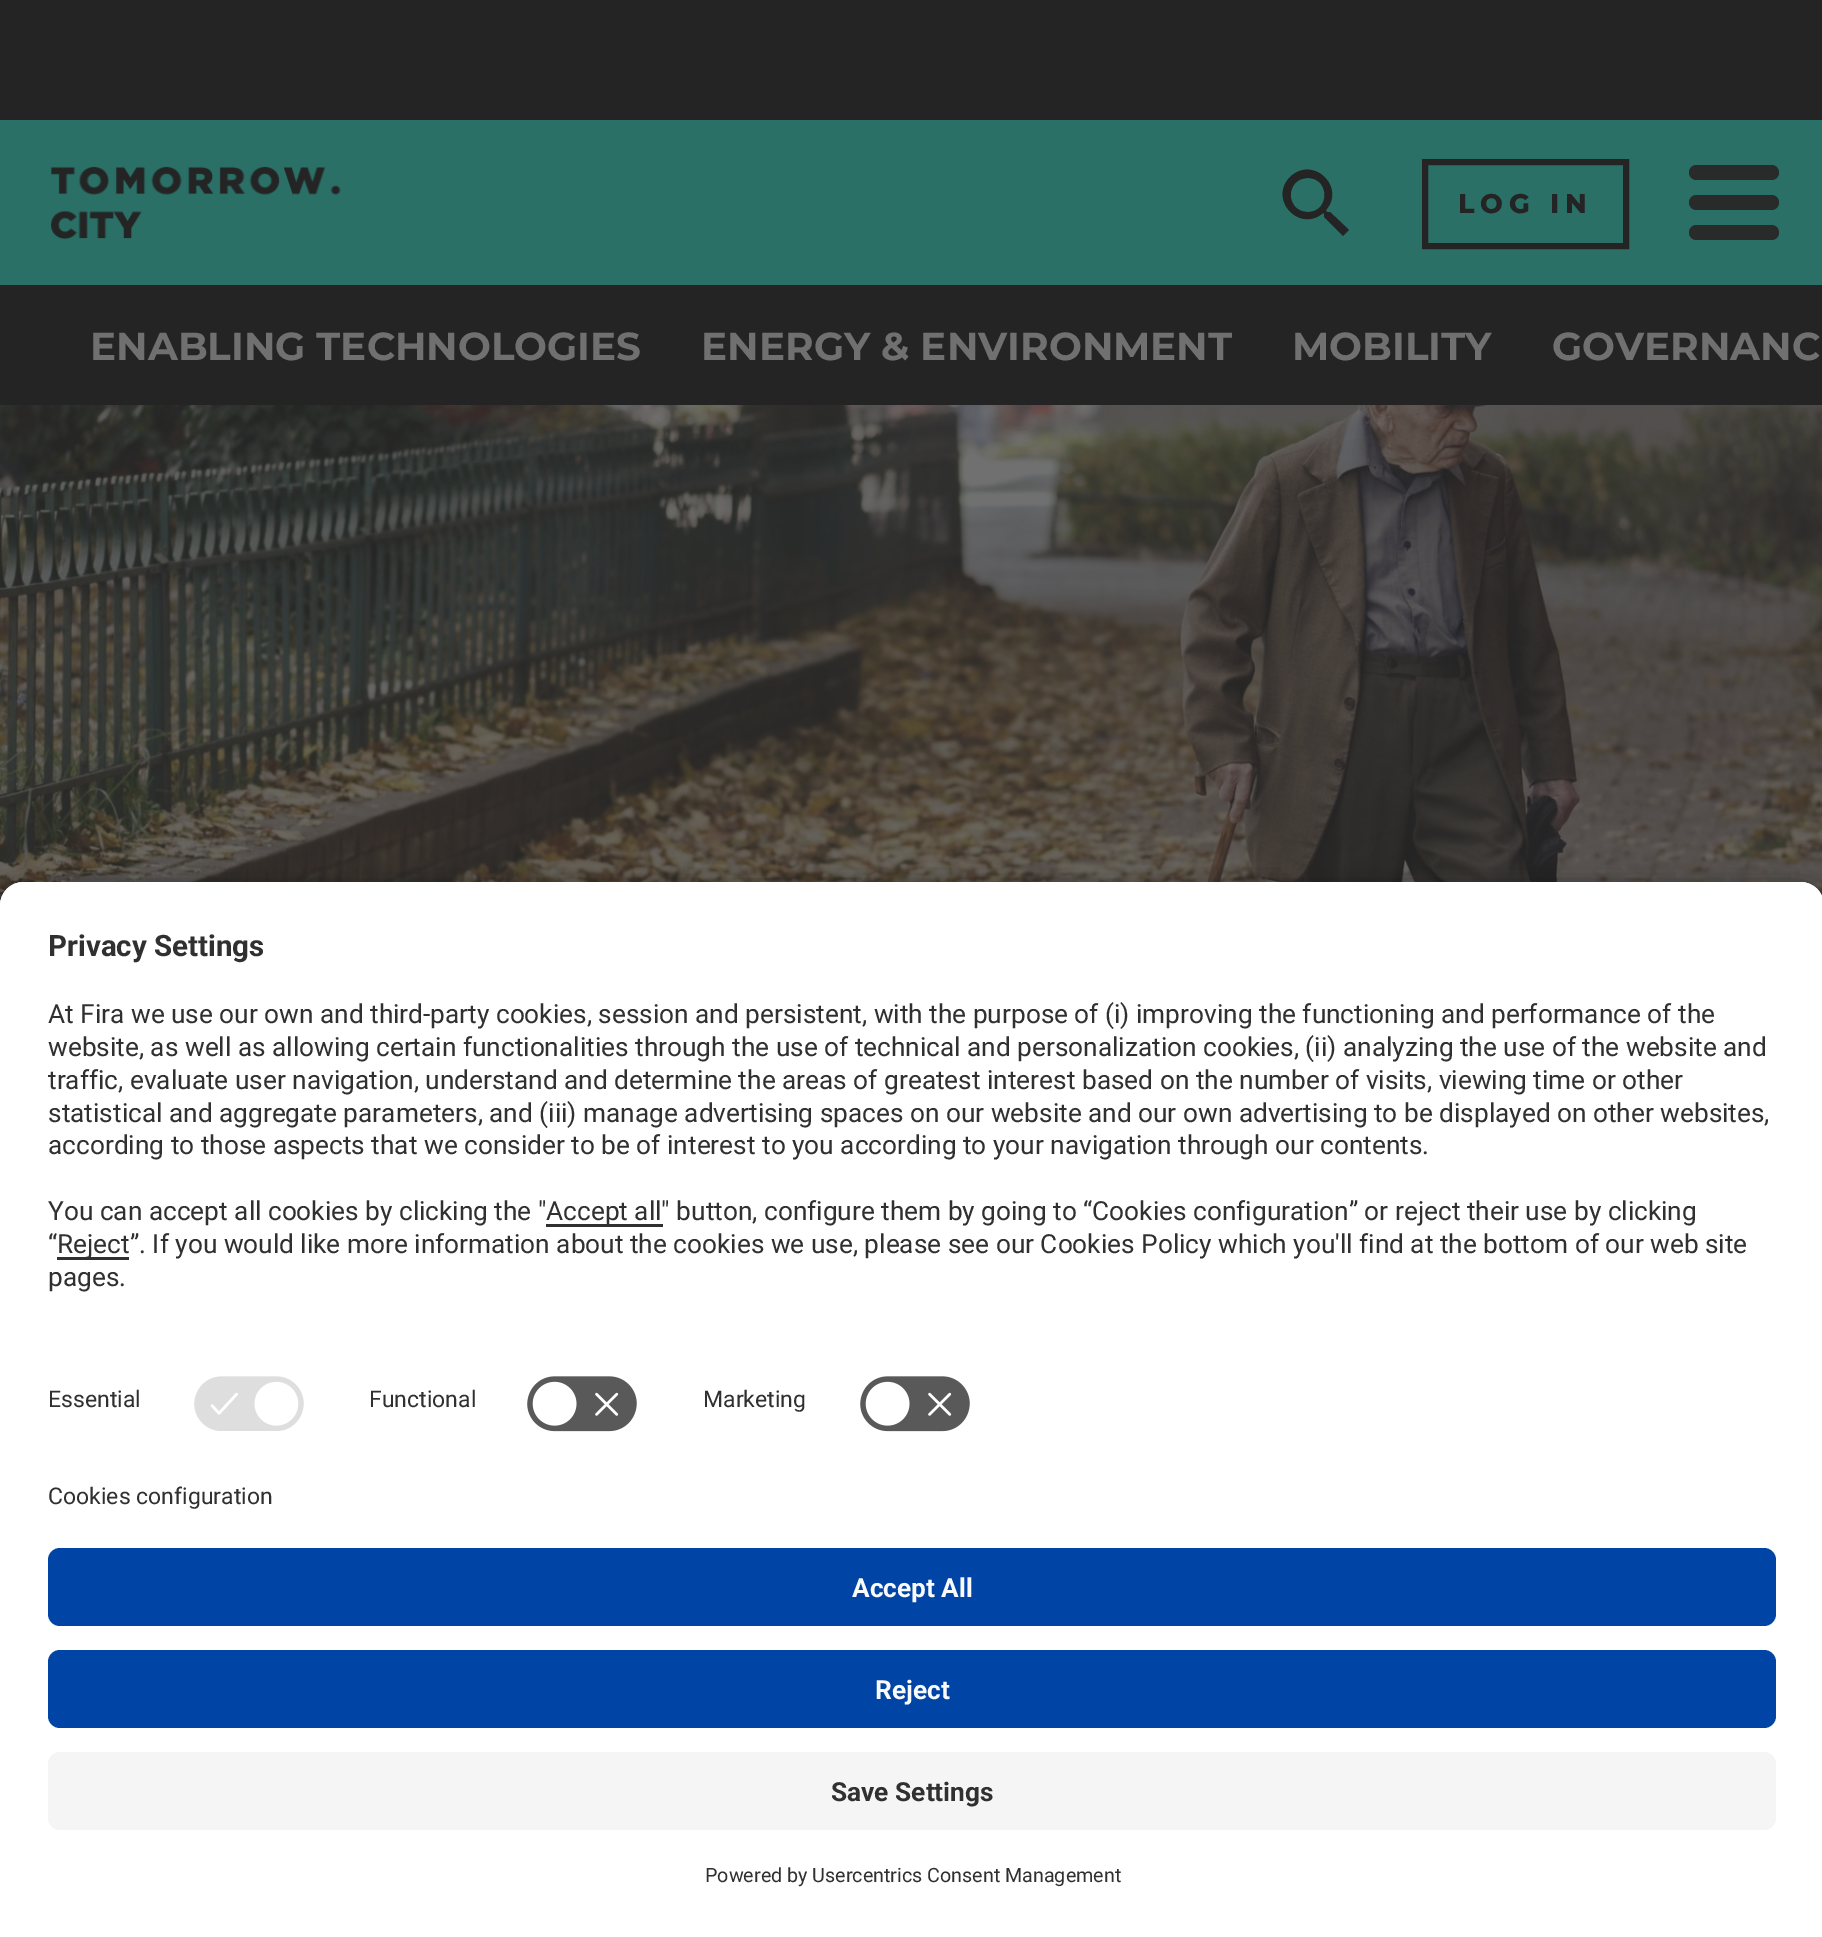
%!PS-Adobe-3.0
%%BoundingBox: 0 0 1822 1937
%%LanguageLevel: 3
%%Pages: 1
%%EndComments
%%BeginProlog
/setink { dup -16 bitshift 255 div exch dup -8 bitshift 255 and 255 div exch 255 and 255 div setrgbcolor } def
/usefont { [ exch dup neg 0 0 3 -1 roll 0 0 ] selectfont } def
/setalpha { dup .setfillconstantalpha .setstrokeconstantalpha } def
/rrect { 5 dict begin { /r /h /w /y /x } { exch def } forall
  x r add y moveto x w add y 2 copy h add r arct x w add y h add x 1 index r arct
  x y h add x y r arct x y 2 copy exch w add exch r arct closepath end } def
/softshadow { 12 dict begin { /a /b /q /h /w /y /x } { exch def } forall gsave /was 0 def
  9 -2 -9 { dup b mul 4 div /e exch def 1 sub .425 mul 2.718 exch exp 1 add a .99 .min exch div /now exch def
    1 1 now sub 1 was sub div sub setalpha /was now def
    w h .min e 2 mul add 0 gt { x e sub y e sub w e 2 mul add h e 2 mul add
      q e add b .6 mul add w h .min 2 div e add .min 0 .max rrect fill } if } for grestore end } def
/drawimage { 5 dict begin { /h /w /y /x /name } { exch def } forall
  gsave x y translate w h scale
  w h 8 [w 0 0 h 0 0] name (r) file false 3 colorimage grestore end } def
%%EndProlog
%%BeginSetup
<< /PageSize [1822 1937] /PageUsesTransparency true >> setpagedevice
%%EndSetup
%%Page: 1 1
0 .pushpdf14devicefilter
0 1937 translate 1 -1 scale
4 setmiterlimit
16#FFFFFF setink
0 0 1822 1937 rectfill
16#2A7066 setink
0 120 1822 165 rectfill
16#242424 setink
0 0 1822 120 rectfill
(img1.raw) 50 166 291 74 drawimage
1330 212 moveto 1327 212 lineto 1326 210 lineto 1346 187 1313 155 1290 177 curveto 1268 200 1300 233 1323 213 curveto 1324 214 lineto 1324 217 lineto 1343 236 lineto 1349 230 lineto closepath 1308 212 moveto 1285 212 1285 178 1308 178 curveto 1330 178 1330 212 1308 212 curveto closepath fill
6 setlinewidth
1425 162 201 84 rectstroke
/Montserrat-ExtraBold 27 usefont
1458 213 moveto 6 0 (LOG IN) ashow
16#292A2A setink
1689 165 90 15 7.5 rrect fill
1689 195 90 15 7.5 rrect fill
1689 225 90 15 7.5 rrect fill
16#242424 setink
0 285 1822 120 rectfill
/Montserrat-Bold 39 usefont
16#707070 setink
[
    [(ENABLING TECHNOLOGIES) 90 360]
    [(ENERGY & ENVIRONMENT) 701 360]
    [(MOBILITY) 1292 360]
    [(GOVERNANC) 1552 360]
] { aload pop moveto show } forall
(img2.raw) 0 405 1822 501 drawimage
16#000000 setink
0 891 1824 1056 24 10.5 0.8 softshadow
16#FFFFFF setink
24 882 moveto 1800 882 lineto 1813.5 882 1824 892.5 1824 906 curveto 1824 1485 lineto 0 1485 lineto 0 906 lineto 0 892.5 10.5 882 24 882 curveto closepath fill
24 882 moveto 1800 882 lineto 1813.5 882 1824 892.5 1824 906 curveto 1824 1353 lineto 0 1353 lineto 0 906 lineto 0 892.5 10.5 882 24 882 curveto closepath fill
/Roboto-Bold 29.5 usefont
16#303030 setink
48 956 moveto (Privacy Settings) show
/Roboto-Regular 26.25 usefont
[
    [(At Fira we use our own and third-party cookies, session and persistent, with the purpose of \(i\) improving the functioning and performance of the) 48 1023]
    [(website, as well as allowing certain functionalities through the use of technical and personalization cookies, \(ii\) analyzing the use of the website and) 48 1056]
    [(traffic, evaluate user navigation, understand and determine the areas of greatest interest based on the number of visits, viewing time or other) 48 1089]
    [(statistical and aggregate parameters, and \(iii\) manage advertising spaces on our website and our own advertising to be displayed on other websites,) 48 1122]
    [(according to those aspects that we consider to be of interest to you according to your navigation through our contents.) 48 1154]
    [(You can accept all cookies by clicking the ") 48 1220]
] { aload pop moveto show } forall
546 1224 117 3 rectfill
546 1220 moveto (Accept all" button, configure them by going to “Cookies configuration” or reject their use by clicking) show
48 1253 moveto (“) show
57 1257 72 3 rectfill
57 1253 moveto (Reject”. If you would like more information about the cookies we use, please see our Cookies Policy which you'll find at the bottom of our web site) show
48 1286 moveto (pages.) show
/Roboto-Regular 23 usefont
48 1407 moveto (Essential) show
(img3.raw) 194 1376 110 55 drawimage
369 1407 moveto (Functional) show
(img4.raw) 527 1376 110 56 drawimage
703 1407 moveto (Marketing) show
(img4.raw) 860 1376 110 56 drawimage
16#FFFFFF setink
0 1485 1822 452 rectfill
16#303030 setink
48 1504 moveto (Cookies configuration) show
16#0045A5 setink
48 1548 1728 78 12 rrect fill
/Roboto-Bold 26.25 usefont
16#FAFAFA setink
852 1597 moveto (Accept All) show
16#0045A5 setink
48 1650 1728 78 12 rrect fill
16#FAFAFA setink
875 1699 moveto (Reject) show
16#F5F5F5 setink
48 1752 1728 78 12 rrect fill
16#303030 setink
831 1801 moveto (Save Settings) show
/Roboto-Regular 19.7 usefont
705 1882 moveto (Powered by Usercentrics Consent Management) show
.poppdf14devicefilter showpage
%%EOF
